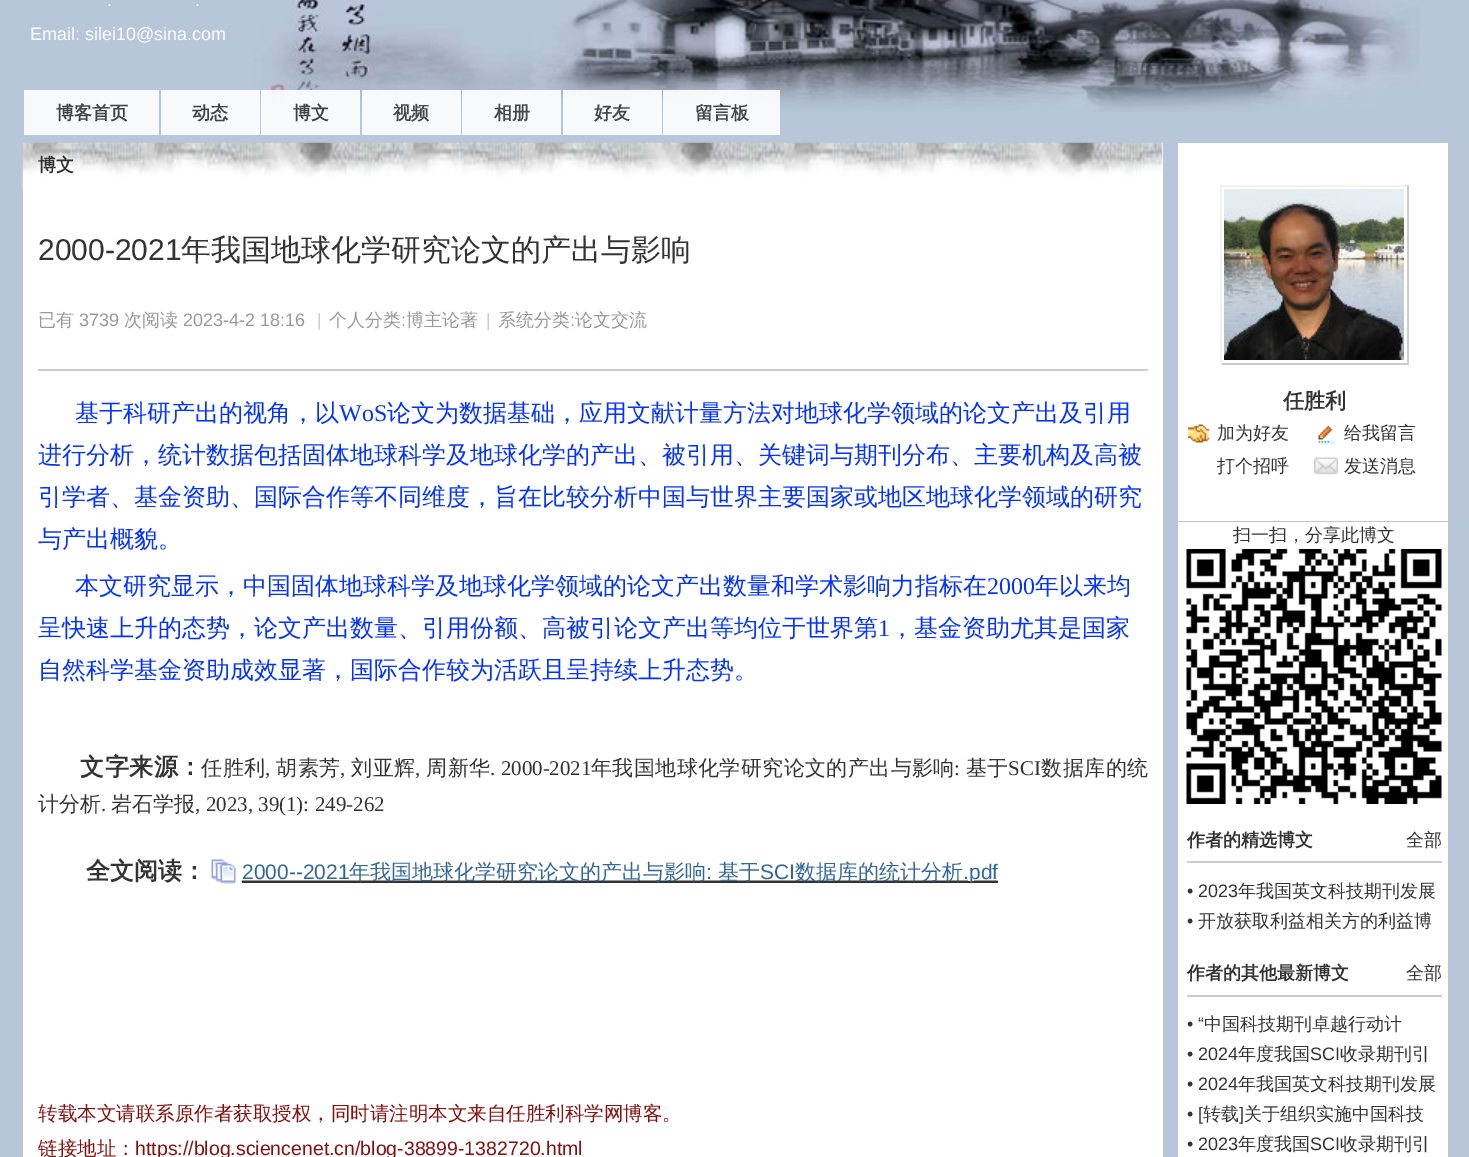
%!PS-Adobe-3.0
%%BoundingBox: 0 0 1469 1157
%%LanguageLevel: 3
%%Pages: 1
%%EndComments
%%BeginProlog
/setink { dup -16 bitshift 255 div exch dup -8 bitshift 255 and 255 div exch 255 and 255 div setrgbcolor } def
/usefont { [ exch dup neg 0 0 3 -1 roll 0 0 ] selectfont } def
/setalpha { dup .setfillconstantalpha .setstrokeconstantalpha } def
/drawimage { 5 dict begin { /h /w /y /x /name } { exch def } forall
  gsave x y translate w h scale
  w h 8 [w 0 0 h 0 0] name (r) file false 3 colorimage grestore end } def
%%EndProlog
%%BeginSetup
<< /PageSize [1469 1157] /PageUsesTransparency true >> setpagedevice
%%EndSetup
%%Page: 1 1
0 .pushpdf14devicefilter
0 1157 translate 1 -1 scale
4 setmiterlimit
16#B7C6D9 setink
0 0 1469 1157 rectfill
(img1.raw) 253 0 1167 112 drawimage
/LiberationSans-Regular 17 usefont
16#FFFFFF setink
107 6 moveto (.) show
195 6 moveto (.) show
/LiberationSans-Regular 18 usefont
30 40 moveto (Email: silei10@sina.com) show
16#F8F9FB setink
24 90 135 45 rectfill
/WenQuanYiZenHei-Bold 18 usefont
16#404244 setink
56 119 moveto (博客首页) show
0.9 setalpha
16#FFFFFF setink
161 90 99 45 rectfill
1 setalpha
16#404244 setink
192 119 moveto (动态) show
0.9 setalpha
16#FFFFFF setink
261 90 99 45 rectfill
1 setalpha
16#404244 setink
293 119 moveto (博文) show
0.9 setalpha
16#FFFFFF setink
362 90 99 45 rectfill
1 setalpha
16#474747 setink
393 119 moveto (视频) show
0.9 setalpha
16#FFFFFF setink
462 90 99 45 rectfill
1 setalpha
16#474747 setink
494 119 moveto (相册) show
0.9 setalpha
16#FFFFFF setink
563 90 99 45 rectfill
1 setalpha
16#474747 setink
594 119 moveto (好友) show
0.9 setalpha
16#FFFFFF setink
663 90 117 45 rectfill
1 setalpha
16#474747 setink
695 119 moveto (留言板) show
16#FFFFFF setink
23 143 1140 1014 rectfill
(img2.raw) 22 142 1141 47 drawimage
16#333333 setink
38 171 moveto (博文) show
16#CDCDCD setink
38 369 1110 2 rectfill
/LiberationSans-Regular 30 usefont
16#333333 setink
38 260 moveto (2000-2021) show
/WenQuanYiZenHei-Medium 30 usefont
181 260 moveto (年我国地球化学研究论文的产出与影响) show
/WenQuanYiZenHei-Medium 18 usefont
16#999999 setink
38 326 moveto (已有) show
/LiberationSans-Regular 18 usefont
79 326 moveto (3739) show
/WenQuanYiZenHei-Medium 18 usefont
124 326 moveto (次阅读) show
/LiberationSans-Regular 18 usefont
183 326 moveto (2023-4-2 18:16) show
16#CCCCCC setink
317 326 moveto (|) show
/WenQuanYiZenHei-Medium 18 usefont
16#999999 setink
329 326 moveto (个人分类) show
/LiberationSans-Regular 18 usefont
401 326 moveto (:) show
/WenQuanYiZenHei-Medium 18 usefont
406 326 moveto (博主论著) show
/LiberationSans-Regular 18 usefont
16#CCCCCC setink
486 326 moveto (|) show
/WenQuanYiZenHei-Medium 18 usefont
16#999999 setink
498 326 moveto (系统分类) show
/LiberationSans-Regular 18 usefont
570 326 moveto (:) show
/WenQuanYiZenHei-Medium 18 usefont
575 326 moveto (论文交流) show
/WenQuanYiZenHei-Medium 24 usefont
16#0432FF setink
75 421 moveto (基于科研产出的视角，以) show
/LiberationSerif-Regular 24 usefont
339 421 moveto (WoS) show
/WenQuanYiZenHei-Medium 24 usefont
[
    [(论文为数据基础，应用文献计量方法对地球化学领域的论文产出及引用) 387 421]
    [(进行分析，统计数据包括固体地球科学及地球化学的产出、被引用、关键词与期刊分布、主要机构及高被) 38 463]
    [(引学者、基金资助、国际合作等不同维度，旨在比较分析中国与世界主要国家或地区地球化学领域的研究) 38 505]
    [(与产出概貌。) 38 547]
    [(本文研究显示，中国固体地球科学及地球化学领域的论文产出数量和学术影响力指标在) 75 594]
] { aload pop moveto show } forall
/LiberationSerif-Regular 24 usefont
987 594 moveto (2000) show
/WenQuanYiZenHei-Medium 24 usefont
1035 594 moveto (年以来均) show
38 636 moveto (呈快速上升的态势，论文产出数量、引用份额、高被引论文产出等均位于世界第) show
/LiberationSerif-Regular 24 usefont
878 636 moveto (1) show
/WenQuanYiZenHei-Medium 24 usefont
890 636 moveto (，基金资助尤其是国家) show
38 678 moveto (自然科学基金资助成效显著，国际合作较为活跃且呈持续上升态势。) show
/WenQuanYiZenHei-Bold 24 usefont
16#333333 setink
80 775 moveto 0.5 0 (文字来源：) ashow
/WenQuanYiZenHei-Medium 21 usefont
201 775 moveto 0.5 0 (任胜利) ashow
/LiberationSerif-Regular 21 usefont
265 775 moveto (,) show
/WenQuanYiZenHei-Medium 21 usefont
276 775 moveto 0.5 0 (胡素芳) ashow
/LiberationSerif-Regular 21 usefont
340 775 moveto (,) show
/WenQuanYiZenHei-Medium 21 usefont
351 775 moveto 0.5 0 (刘亚辉) ashow
/LiberationSerif-Regular 21 usefont
415 775 moveto (,) show
/WenQuanYiZenHei-Medium 21 usefont
426 775 moveto 0.5 0 (周新华) ashow
/LiberationSerif-Regular 21 usefont
490 775 moveto (. 2000-2021) show
/WenQuanYiZenHei-Medium 21 usefont
591 775 moveto 0.4 0 (年我国地球化学研究论文的产出与影响) ashow
/LiberationSerif-Regular 21 usefont
954 775 moveto (:) show
/WenQuanYiZenHei-Medium 21 usefont
966 775 moveto (基于) show
/LiberationSerif-Regular 21 usefont
1008 775 moveto (SCI) show
/WenQuanYiZenHei-Medium 21 usefont
1041 775 moveto 0.5 0 (数据库的统) ashow
38 811 moveto (计分析) show
/LiberationSerif-Regular 21 usefont
101 811 moveto (.) show
/WenQuanYiZenHei-Medium 21 usefont
111 811 moveto (岩石学报) show
/LiberationSerif-Regular 21 usefont
195 811 moveto (, 2023, 39\(1\): 249-262) show
/WenQuanYiZenHei-Bold 24 usefont
86 879 moveto (全文阅读：) show
(img3.raw) 211 859 787 25 drawimage
/LiberationSans-Regular 21 usefont
16#336699 setink
242 879 moveto (2000--2021) show
16#333333 setink
242 881 756 2 rectfill
/WenQuanYiZenHei-Medium 21 usefont
16#336699 setink
349 879 moveto (年我国地球化学研究论文的产出与影响) show
/LiberationSans-Regular 21 usefont
706 879 moveto (:) show
/WenQuanYiZenHei-Medium 21 usefont
718 879 moveto (基于) show
/LiberationSans-Regular 21 usefont
760 879 moveto (SCI) show
/WenQuanYiZenHei-Medium 21 usefont
795 879 moveto (数据库的统计分析) show
/LiberationSans-Regular 21 usefont
963 879 moveto (.pdf) show
/WenQuanYiZenHei-Medium 19.5 usefont
16#850F0F setink
38 1120 moveto (转载本文请联系原作者获取授权，同时请注明本文来自任胜利科学网博客。) show
38 1155 moveto (链接地址：) show
/LiberationSans-Regular 19.5 usefont
135 1155 moveto (https://blog.sciencenet.cn/blog-38899-1382720.html) show
[
    [1178 143 270 378 16#FFFFFF]
    [1220 185 189 2 16#F2F2F2]
    [1407 185 2 180 16#CDCDCD]
    [1220 363 189 2 16#CDCDCD]
    [1220 185 2 180 16#F2F2F2]
] { aload pop setink rectfill } forall
(img4.raw) 1224 189 180 171 drawimage
/WenQuanYiZenHei-Bold 21 usefont
16#333333 setink
1283 408 moveto (任胜利) show
(img5.raw) 1187 424 23 19 drawimage
/WenQuanYiZenHei-Medium 18 usefont
1217 439 moveto (加为好友) show
(img6.raw) 1318 425 18 20 drawimage
1344 439 moveto (给我留言) show
1217 472 moveto (打个招呼) show
(img7.raw) 1314 457 24 18 drawimage
1344 472 moveto (发送消息) show
16#FFFFFF setink
1178 522 270 635 rectfill
16#333333 setink
1233 541 moveto (扫一扫，分享此博文) show
(img8.raw) 1186 549 256 255 drawimage
16#CDCDCD setink
1187 861 255 2 rectfill
/WenQuanYiZenHei-Bold 18 usefont
16#333333 setink
1187 846 moveto (作者的精选博文) show
/WenQuanYiZenHei-Medium 18 usefont
1406 846 moveto (全部) show
/LiberationSans-Regular 18 usefont
1187 897 moveto (• 2023) show
/WenQuanYiZenHei-Medium 18 usefont
1238 897 moveto (年我国英文科技期刊发展) show
/LiberationSans-Regular 18 usefont
1187 927 moveto (•) show
/WenQuanYiZenHei-Medium 18 usefont
1198 927 moveto (开放获取利益相关方的利益博) show
16#CDCDCD setink
1187 995 255 2 rectfill
/WenQuanYiZenHei-Bold 18 usefont
16#333333 setink
1187 979 moveto (作者的其他最新博文) show
/WenQuanYiZenHei-Medium 18 usefont
1406 979 moveto (全部) show
/LiberationSans-Regular 18 usefont
1187 1030 moveto (• “) show
/WenQuanYiZenHei-Medium 18 usefont
1204 1030 moveto (中国科技期刊卓越行动计) show
/LiberationSans-Regular 18 usefont
1187 1060 moveto (• 2024) show
/WenQuanYiZenHei-Medium 18 usefont
1238 1060 moveto (年度我国) show
/LiberationSans-Regular 18 usefont
1310 1060 moveto (SCI) show
/WenQuanYiZenHei-Medium 18 usefont
1340 1060 moveto (收录期刊引) show
/LiberationSans-Regular 18 usefont
1187 1090 moveto (• 2024) show
/WenQuanYiZenHei-Medium 18 usefont
1238 1090 moveto (年我国英文科技期刊发展) show
/LiberationSans-Regular 18 usefont
1187 1120 moveto (• [) show
/WenQuanYiZenHei-Medium 18 usefont
1203 1120 moveto (转载) show
/LiberationSans-Regular 18 usefont
1239 1120 moveto (]) show
/WenQuanYiZenHei-Medium 18 usefont
1244 1120 moveto (关于组织实施中国科技) show
/LiberationSans-Regular 18 usefont
1187 1150 moveto (• 2023) show
/WenQuanYiZenHei-Medium 18 usefont
1238 1150 moveto (年度我国) show
/LiberationSans-Regular 18 usefont
1310 1150 moveto (SCI) show
/WenQuanYiZenHei-Medium 18 usefont
1340 1150 moveto (收录期刊引) show
.poppdf14devicefilter showpage
%%EOF
